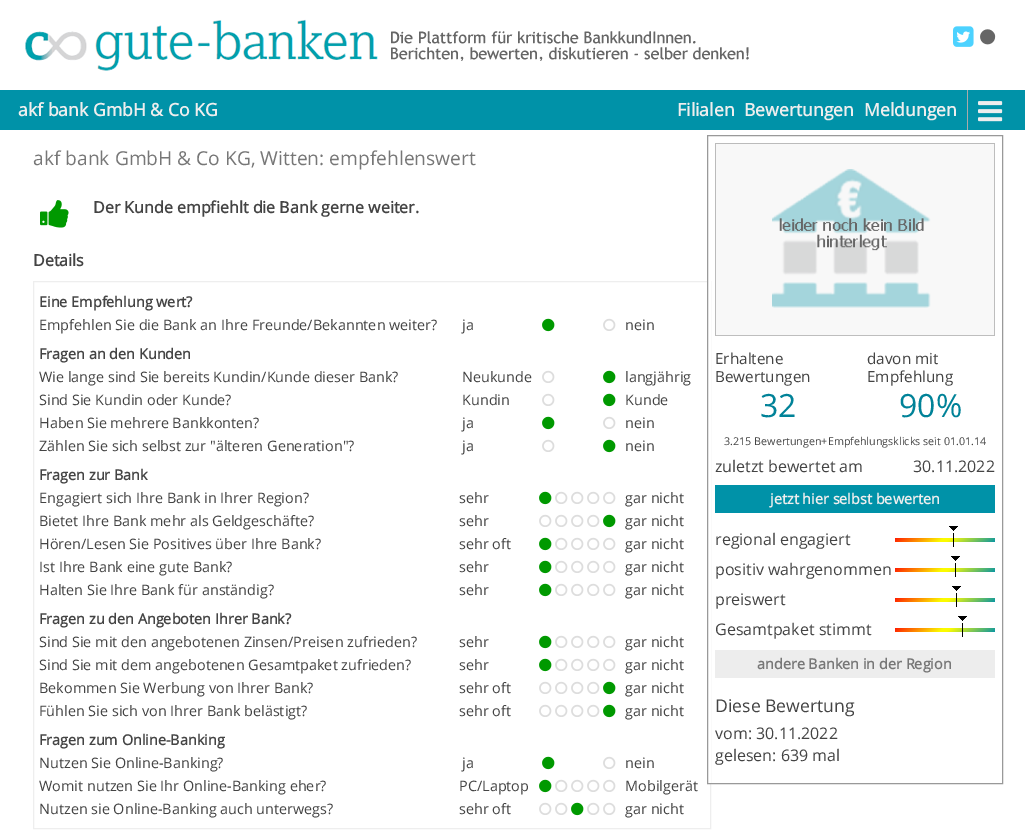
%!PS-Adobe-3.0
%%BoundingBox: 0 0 1025 840
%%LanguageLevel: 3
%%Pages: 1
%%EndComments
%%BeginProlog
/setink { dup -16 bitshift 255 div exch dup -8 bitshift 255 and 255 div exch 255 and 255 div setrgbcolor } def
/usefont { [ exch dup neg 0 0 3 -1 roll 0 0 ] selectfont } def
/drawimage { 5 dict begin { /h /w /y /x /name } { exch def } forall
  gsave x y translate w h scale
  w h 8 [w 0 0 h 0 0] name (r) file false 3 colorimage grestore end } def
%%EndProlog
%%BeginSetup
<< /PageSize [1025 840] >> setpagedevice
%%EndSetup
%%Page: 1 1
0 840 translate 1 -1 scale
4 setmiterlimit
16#FFFFFF setink
0 0 1025 840 rectfill
(img1.raw) 25 19 353 52 drawimage
(img2.raw) 391 31 358 30 drawimage
(img3.raw) 953 26 21 21 drawimage
(img4.raw) 980 29 16 16 drawimage
16#0092A8 setink
0 90 1025 40 rectfill
/OpenSans-Bold 17.6 usefont
16#EEEEEE setink
[
    [(akf bank GmbH & Co KG) 18 116]
    [(Filialen) 677 116]
    [(Bewertungen) 744 116]
    [(Meldungen) 864 116]
] { aload pop moveto show } forall
16#AAAAAA setink
967 90 1 40 rectfill
(img5.raw) 978 101 25 21 drawimage
16#EEEEEE setink
33.5 281.5 677 547 rectstroke
16#FFFFFF setink
708 281 3 502 rectfill
16#999999 setink
707.5 135.5 295 648 rectstroke
(img6.raw) 715 143 280 193 drawimage
/OpenSans-Regular 15.25 usefont
16#444444 setink
715 364 moveto (Erhaltene) show
715 382 moveto (Bewertungen) show
/OpenSans-Regular 32 usefont
16#008298 setink
760 417 moveto (32) show
/OpenSans-Regular 15.25 usefont
16#444444 setink
867 364 moveto (davon mit) show
867 382 moveto (Empfehlung) show
/OpenSans-Regular 32 usefont
16#008298 setink
899 417 moveto (90%) show
/OpenSans-Regular 10.75 usefont
16#444444 setink
724 445 moveto (3.215 Bewertungen+Empfehlungsklicks seit 01.01.14) show
/OpenSans-Regular 16 usefont
715 472 moveto (zuletzt bewertet am) show
913 472 moveto (30.11.2022) show
16#0092A8 setink
715 485 280 28 rectfill
/OpenSans-Bold 14.4 usefont
16#EEEEEE setink
770 504 moveto (jetzt hier selbst bewerten) show
/OpenSans-Regular 16 usefont
16#444444 setink
715 545 moveto (regional engagiert) show
(img7.raw) 895 538 100 4 drawimage
(img8.raw) 949 526 9 21 drawimage
715 575 moveto (positiv wahrgenommen) show
(img7.raw) 895 568 100 4 drawimage
(img9.raw) 951 556 9 21 drawimage
715 605 moveto (preiswert) show
(img7.raw) 895 598 100 4 drawimage
(img10.raw) 952 586 9 21 drawimage
715 635 moveto (Gesamtpaket stimmt) show
(img7.raw) 895 628 100 4 drawimage
(img11.raw) 958 616 9 21 drawimage
16#EDEDED setink
715 650 280 28 rectfill
/OpenSans-Bold 14.4 usefont
16#777777 setink
757 669 moveto (andere Banken in der Region) show
/OpenSans-Regular 17.6 usefont
16#444444 setink
715 712 moveto (Diese Bewertung) show
/OpenSans-Regular 16 usefont
715 739 moveto (vom: 30.11.2022) show
715 761 moveto (gelesen: 639 mal) show
/OpenSans-Regular 19.2 usefont
16#777777 setink
33 165 moveto (akf bank GmbH & Co KG, Witten: empfehlenswert) show
(img12.raw) 40 200 29 28 drawimage
/OpenSans-Bold 16 usefont
16#444444 setink
93 213 moveto (Der Kunde empfiehlt die Bank gerne weiter.) show
33 266 moveto (Details) show
/OpenSans-Bold 14.4 usefont
39 307 moveto (Eine Empfehlung wert?) show
/OpenSans-Regular 14.4 usefont
39 330 moveto (Empfehlen Sie die Bank an Ihre Freunde/Bekannten weiter?) show
462 330 moveto (ja) show
(img13.raw) 542 318 13 14 drawimage
(img14.raw) 603 318 13 13 drawimage
625 330 moveto (nein) show
/OpenSans-Bold 14.4 usefont
39 359 moveto (Fragen an den Kunden) show
/OpenSans-Regular 14.4 usefont
39 382 moveto (Wie lange sind Sie bereits Kundin/Kunde dieser Bank?) show
462 382 moveto (Neukunde) show
(img14.raw) 542 370 13 13 drawimage
(img13.raw) 603 370 13 14 drawimage
[
    [(langjährig) 625 382]
    [(Sind Sie Kundin oder Kunde?) 39 405]
    [(Kundin) 462 405]
] { aload pop moveto show } forall
(img14.raw) 542 393 13 13 drawimage
(img13.raw) 603 393 13 14 drawimage
[
    [(Kunde) 625 405]
    [(Haben Sie mehrere Bankkonten?) 39 428]
    [(ja) 462 428]
] { aload pop moveto show } forall
(img13.raw) 542 416 13 14 drawimage
(img14.raw) 603 416 13 13 drawimage
[
    [(nein) 625 428]
    [(Zählen Sie sich selbst zur "älteren Generation"?) 39 451]
    [(ja) 462 451]
] { aload pop moveto show } forall
(img14.raw) 542 439 13 13 drawimage
(img13.raw) 603 439 13 14 drawimage
625 451 moveto (nein) show
/OpenSans-Bold 14.4 usefont
39 480 moveto (Fragen zur Bank) show
/OpenSans-Regular 14.4 usefont
39 503 moveto (Engagiert sich Ihre Bank in Ihrer Region?) show
459 503 moveto (sehr) show
(img13.raw) 539 491 13 14 drawimage
(img14.raw) 555 491 13 13 drawimage
(img14.raw) 571 491 13 13 drawimage
(img14.raw) 587 491 13 13 drawimage
(img14.raw) 603 491 13 13 drawimage
[
    [(gar nicht) 625 503]
    [(Bietet Ihre Bank mehr als Geldgeschäfte?) 39 526]
    [(sehr) 459 526]
] { aload pop moveto show } forall
(img14.raw) 539 514 13 13 drawimage
(img14.raw) 555 514 13 13 drawimage
(img14.raw) 571 514 13 13 drawimage
(img14.raw) 587 514 13 13 drawimage
(img13.raw) 603 514 13 14 drawimage
[
    [(gar nicht) 625 526]
    [(Hören/Lesen Sie Positives über Ihre Bank?) 39 549]
    [(sehr oft) 459 549]
] { aload pop moveto show } forall
(img13.raw) 539 537 13 14 drawimage
(img14.raw) 555 537 13 13 drawimage
(img14.raw) 571 537 13 13 drawimage
(img14.raw) 587 537 13 13 drawimage
(img14.raw) 603 537 13 13 drawimage
[
    [(gar nicht) 625 549]
    [(Ist Ihre Bank eine gute Bank?) 39 572]
    [(sehr) 459 572]
] { aload pop moveto show } forall
(img13.raw) 539 560 13 14 drawimage
(img14.raw) 555 560 13 13 drawimage
(img14.raw) 571 560 13 13 drawimage
(img14.raw) 587 560 13 13 drawimage
(img14.raw) 603 560 13 13 drawimage
[
    [(gar nicht) 625 572]
    [(Halten Sie Ihre Bank für anständig?) 39 595]
    [(sehr) 459 595]
] { aload pop moveto show } forall
(img13.raw) 539 583 13 14 drawimage
(img14.raw) 555 583 13 13 drawimage
(img14.raw) 571 583 13 13 drawimage
(img14.raw) 587 583 13 13 drawimage
(img14.raw) 603 583 13 13 drawimage
625 595 moveto (gar nicht) show
/OpenSans-Bold 14.4 usefont
39 624 moveto (Fragen zu den Angeboten Ihrer Bank?) show
/OpenSans-Regular 14.4 usefont
39 647 moveto (Sind Sie mit den angebotenen Zinsen/Preisen zufrieden?) show
459 647 moveto (sehr) show
(img13.raw) 539 635 13 14 drawimage
(img14.raw) 555 635 13 13 drawimage
(img14.raw) 571 635 13 13 drawimage
(img14.raw) 587 635 13 13 drawimage
(img14.raw) 603 635 13 13 drawimage
[
    [(gar nicht) 625 647]
    [(Sind Sie mit dem angebotenen Gesamtpaket zufrieden?) 39 670]
    [(sehr) 459 670]
] { aload pop moveto show } forall
(img13.raw) 539 658 13 14 drawimage
(img14.raw) 555 658 13 13 drawimage
(img14.raw) 571 658 13 13 drawimage
(img14.raw) 587 658 13 13 drawimage
(img14.raw) 603 658 13 13 drawimage
[
    [(gar nicht) 625 670]
    [(Bekommen Sie Werbung von Ihrer Bank?) 39 693]
    [(sehr oft) 459 693]
] { aload pop moveto show } forall
(img14.raw) 539 681 13 13 drawimage
(img14.raw) 555 681 13 13 drawimage
(img14.raw) 571 681 13 13 drawimage
(img14.raw) 587 681 13 13 drawimage
(img13.raw) 603 681 13 14 drawimage
[
    [(gar nicht) 625 693]
    [(Fühlen Sie sich von Ihrer Bank belästigt?) 39 716]
    [(sehr oft) 459 716]
] { aload pop moveto show } forall
(img14.raw) 539 704 13 13 drawimage
(img14.raw) 555 704 13 13 drawimage
(img14.raw) 571 704 13 13 drawimage
(img14.raw) 587 704 13 13 drawimage
(img13.raw) 603 704 13 14 drawimage
625 716 moveto (gar nicht) show
/OpenSans-Bold 14.4 usefont
39 745 moveto (Fragen zum Online-Banking) show
/OpenSans-Regular 14.4 usefont
39 768 moveto (Nutzen Sie Online-Banking?) show
462 768 moveto (ja) show
(img13.raw) 542 756 13 14 drawimage
(img14.raw) 603 756 13 13 drawimage
[
    [(nein) 625 768]
    [(Womit nutzen Sie Ihr Online-Banking eher?) 39 791]
    [(PC/Laptop) 459 791]
] { aload pop moveto show } forall
(img13.raw) 539 779 13 14 drawimage
(img14.raw) 555 779 13 13 drawimage
(img14.raw) 571 779 13 13 drawimage
(img14.raw) 587 779 13 13 drawimage
(img14.raw) 603 779 13 13 drawimage
[
    [(Mobilgerät) 625 791]
    [(Nutzen sie Online-Banking auch unterwegs?) 39 814]
    [(sehr oft) 459 814]
] { aload pop moveto show } forall
(img14.raw) 539 802 13 13 drawimage
(img14.raw) 555 802 13 13 drawimage
(img13.raw) 571 802 13 14 drawimage
(img14.raw) 587 802 13 13 drawimage
(img14.raw) 603 802 13 13 drawimage
625 814 moveto (gar nicht) show
showpage
%%EOF
